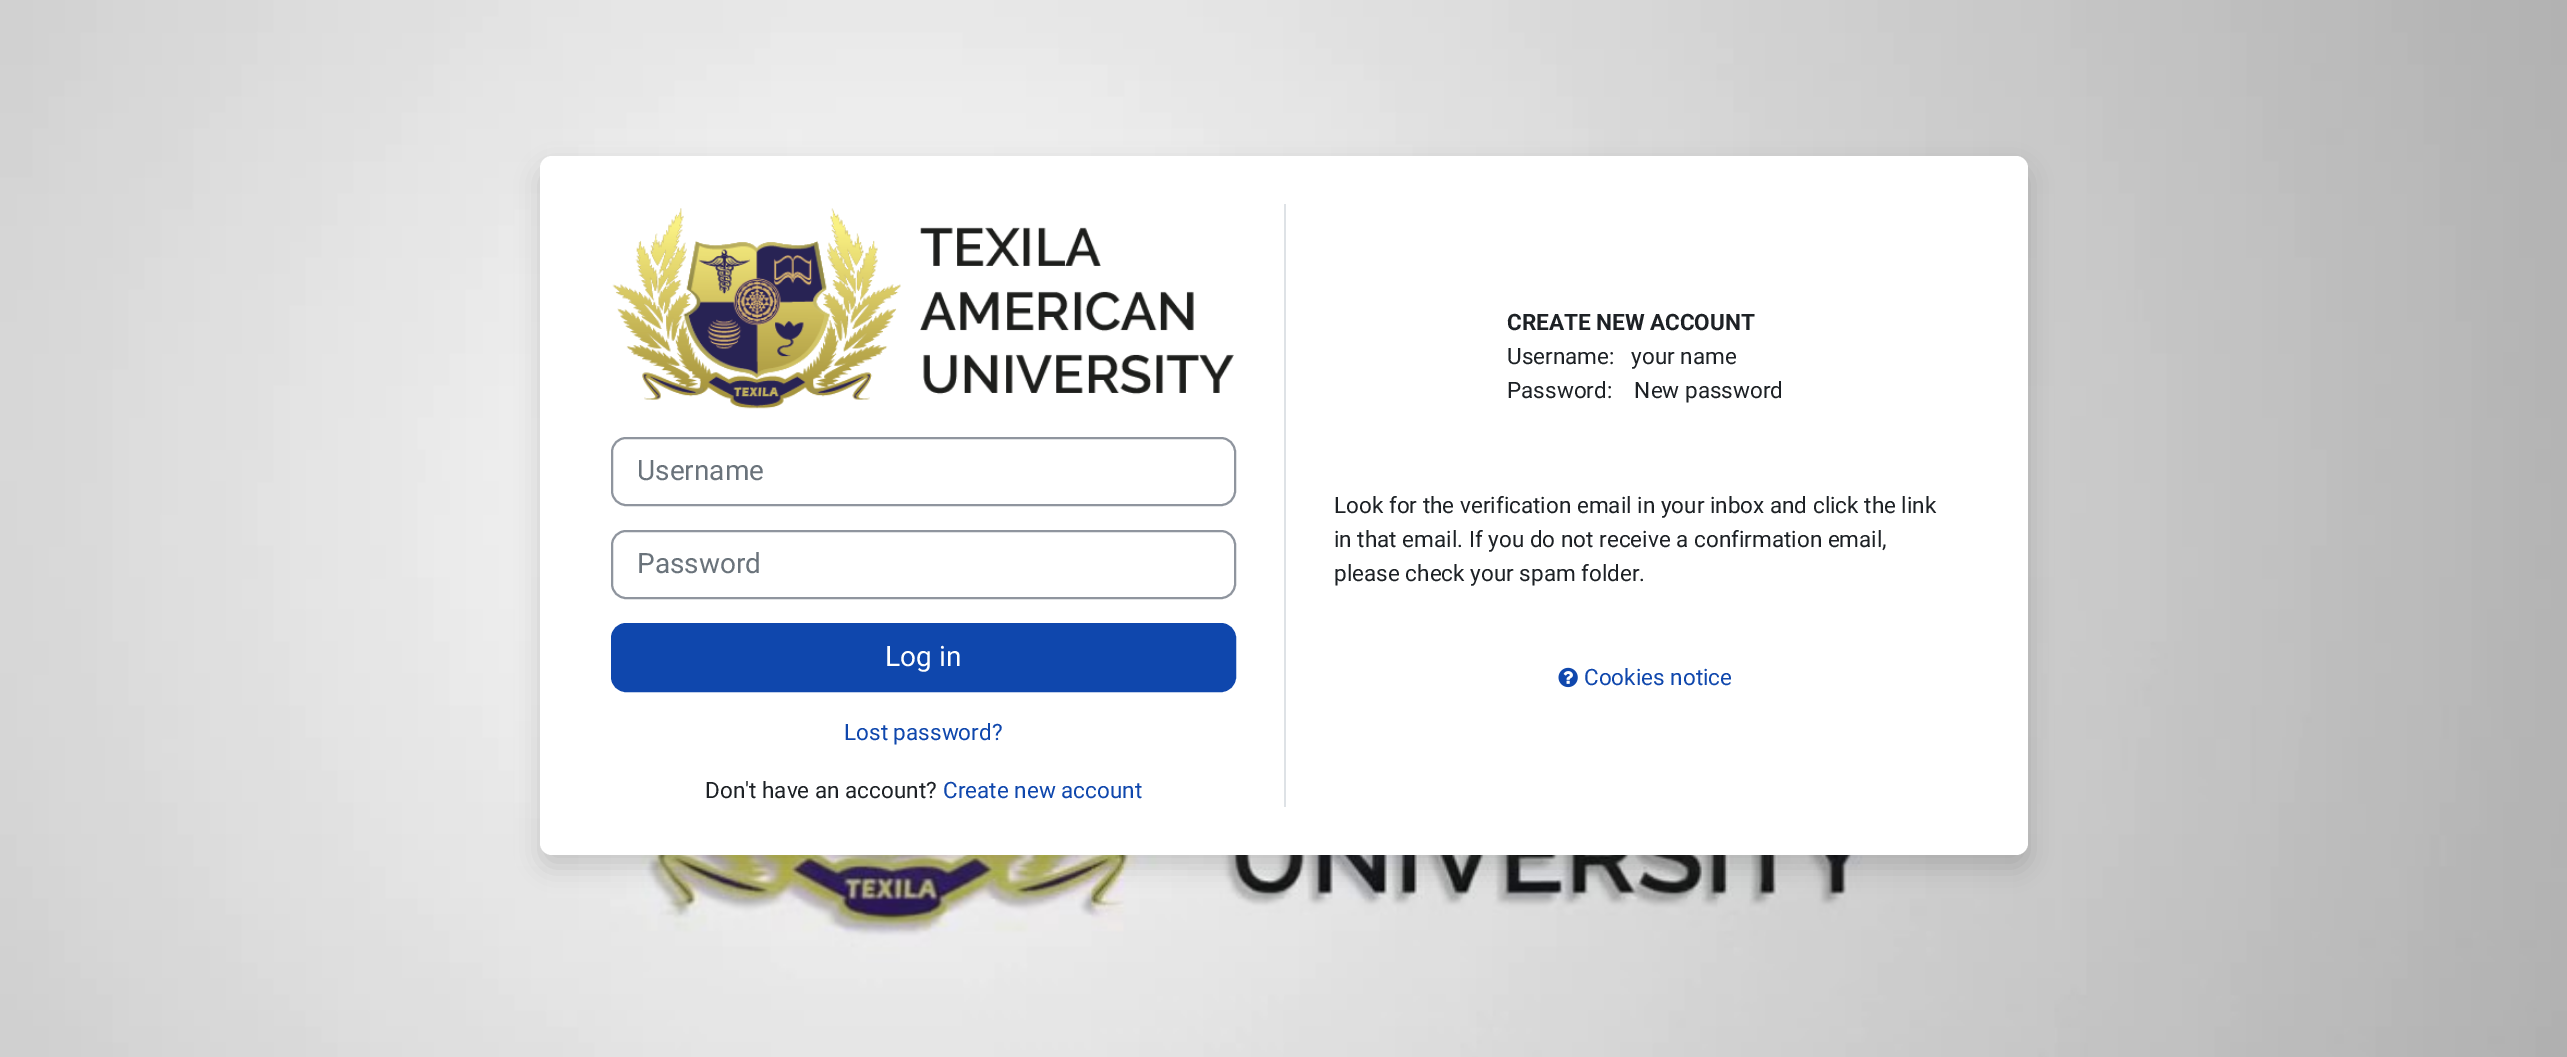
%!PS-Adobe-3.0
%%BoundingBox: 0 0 2567 1057
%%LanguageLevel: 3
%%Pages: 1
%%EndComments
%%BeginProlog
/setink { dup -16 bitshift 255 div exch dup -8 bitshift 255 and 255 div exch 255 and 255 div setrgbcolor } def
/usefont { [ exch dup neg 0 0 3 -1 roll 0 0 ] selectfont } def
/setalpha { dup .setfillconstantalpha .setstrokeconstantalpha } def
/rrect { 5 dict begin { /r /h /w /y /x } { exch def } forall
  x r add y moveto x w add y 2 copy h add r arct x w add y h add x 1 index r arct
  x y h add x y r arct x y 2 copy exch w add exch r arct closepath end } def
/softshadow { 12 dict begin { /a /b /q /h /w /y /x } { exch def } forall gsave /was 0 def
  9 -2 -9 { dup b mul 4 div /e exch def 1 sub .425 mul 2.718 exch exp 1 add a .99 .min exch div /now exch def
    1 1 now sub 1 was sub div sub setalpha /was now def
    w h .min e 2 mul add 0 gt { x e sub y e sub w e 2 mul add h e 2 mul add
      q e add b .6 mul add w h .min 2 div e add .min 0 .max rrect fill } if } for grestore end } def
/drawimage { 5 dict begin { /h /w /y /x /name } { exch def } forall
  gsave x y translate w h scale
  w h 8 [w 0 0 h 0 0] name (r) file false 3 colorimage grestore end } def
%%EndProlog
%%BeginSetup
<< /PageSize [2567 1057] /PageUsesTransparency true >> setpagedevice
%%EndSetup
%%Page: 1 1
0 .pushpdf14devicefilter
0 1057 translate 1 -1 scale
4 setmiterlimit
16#FFFFFF setink
0 0 2567 1057 rectfill
(img1.raw) 0 0 2567 1057 drawimage
16#000000 setink
540 168 1488 699 12 12 0.15 softshadow
16#FFFFFF setink
540 156 1488 699 12 rrect fill
(img2.raw) 612 208 622 201 drawimage
16#8F959E setink
2 setlinewidth
612 438 623 67 14 rrect stroke
/Roboto-Regular 28 usefont
16#6A737B setink
637 480 moveto (Username) show
16#8F959E setink
612 531 623 67 14 rrect stroke
16#6A737B setink
637 573 moveto (Password) show
16#0F47AD setink
612 624 623 67 14 rrect gsave fill grestore
stroke
16#FFFFFF setink
885 666 moveto (Log in) show
/Roboto-Regular 22.5 usefont
16#0F47AD setink
844 740 moveto (Lost password?) show
16#1D2125 setink
705 798 moveto (Don't have an account?) show
16#0F47AD setink
943 798 moveto (Create new account) show
16#DEE2E6 setink
1284 204 2 603 rectfill
/Roboto-Bold 22.5 usefont
16#1D2125 setink
1507 330 moveto (CREATE NEW ACCOUNT) show
/Roboto-Regular 22.5 usefont
[
    [(Username:   your name) 1507 364]
    [(Password:    New password) 1507 398]
    [(Look for the verification email in your inbox and click the link) 1334 513]
    [(in that email. If you do not receive a confirmation email,) 1334 547]
    [(please check your spam folder.) 1334 581]
] { aload pop moveto show } forall
(img3.raw) 1558 667 20 21 drawimage
16#0F47AD setink
1584 685 moveto (Cookies notice) show
.poppdf14devicefilter showpage
%%EOF
